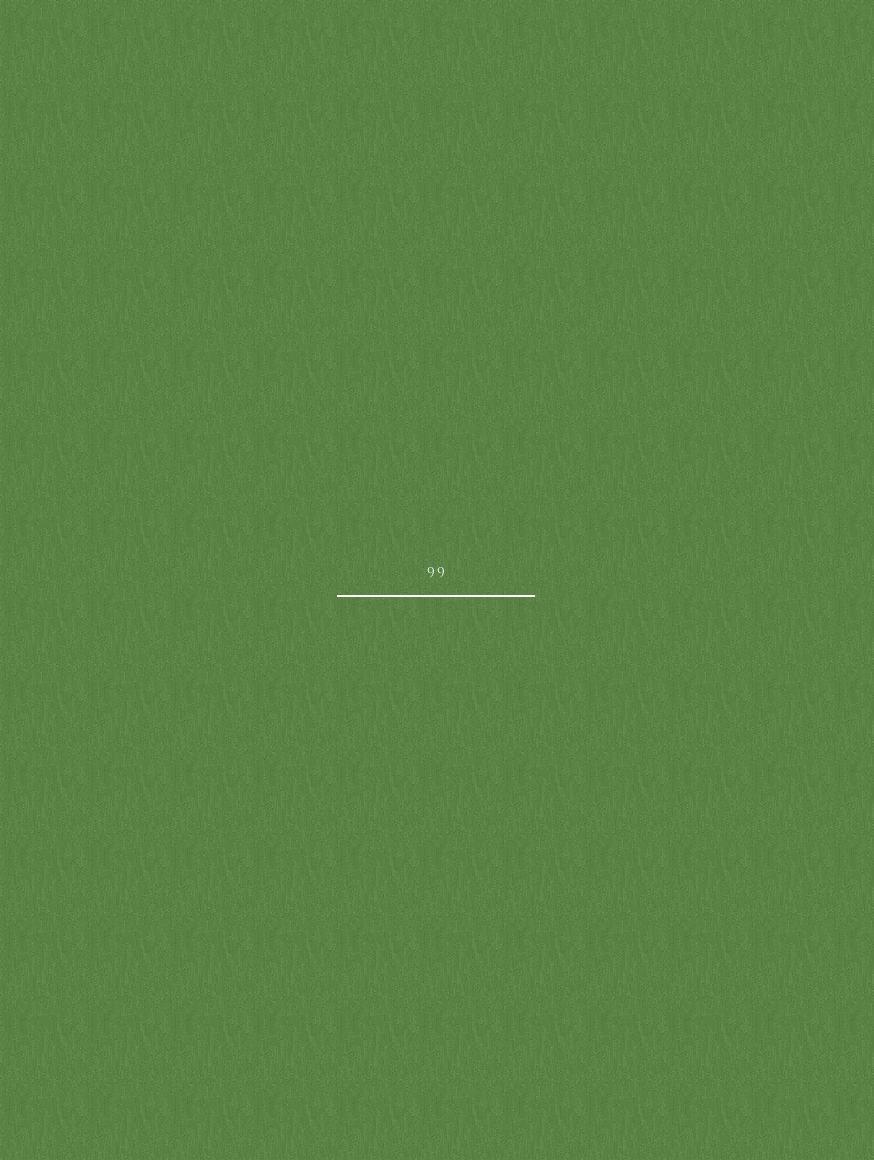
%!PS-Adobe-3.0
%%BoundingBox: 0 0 874 1160
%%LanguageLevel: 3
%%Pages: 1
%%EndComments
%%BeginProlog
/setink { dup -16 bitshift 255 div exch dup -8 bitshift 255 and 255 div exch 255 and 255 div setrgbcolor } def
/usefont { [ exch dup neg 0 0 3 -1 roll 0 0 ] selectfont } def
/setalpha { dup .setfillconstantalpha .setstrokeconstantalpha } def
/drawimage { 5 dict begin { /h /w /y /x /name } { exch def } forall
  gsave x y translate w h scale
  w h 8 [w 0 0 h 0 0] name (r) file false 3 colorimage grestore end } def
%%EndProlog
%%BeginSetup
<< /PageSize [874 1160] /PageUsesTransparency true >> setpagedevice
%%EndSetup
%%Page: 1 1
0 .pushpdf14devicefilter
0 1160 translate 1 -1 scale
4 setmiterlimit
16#578A3D setink
0 0 874 1160 rectfill
(img1.raw) 0 0 874 1160 drawimage
/Cinzel-Regular 14 usefont
16#FAFAFA setink
427 577 moveto 2 0 (99) ashow
0.1 setalpha
535 595 2 2 rectfill
1 setalpha
337 595 198 2 rectfill
.poppdf14devicefilter showpage
%%EOF
